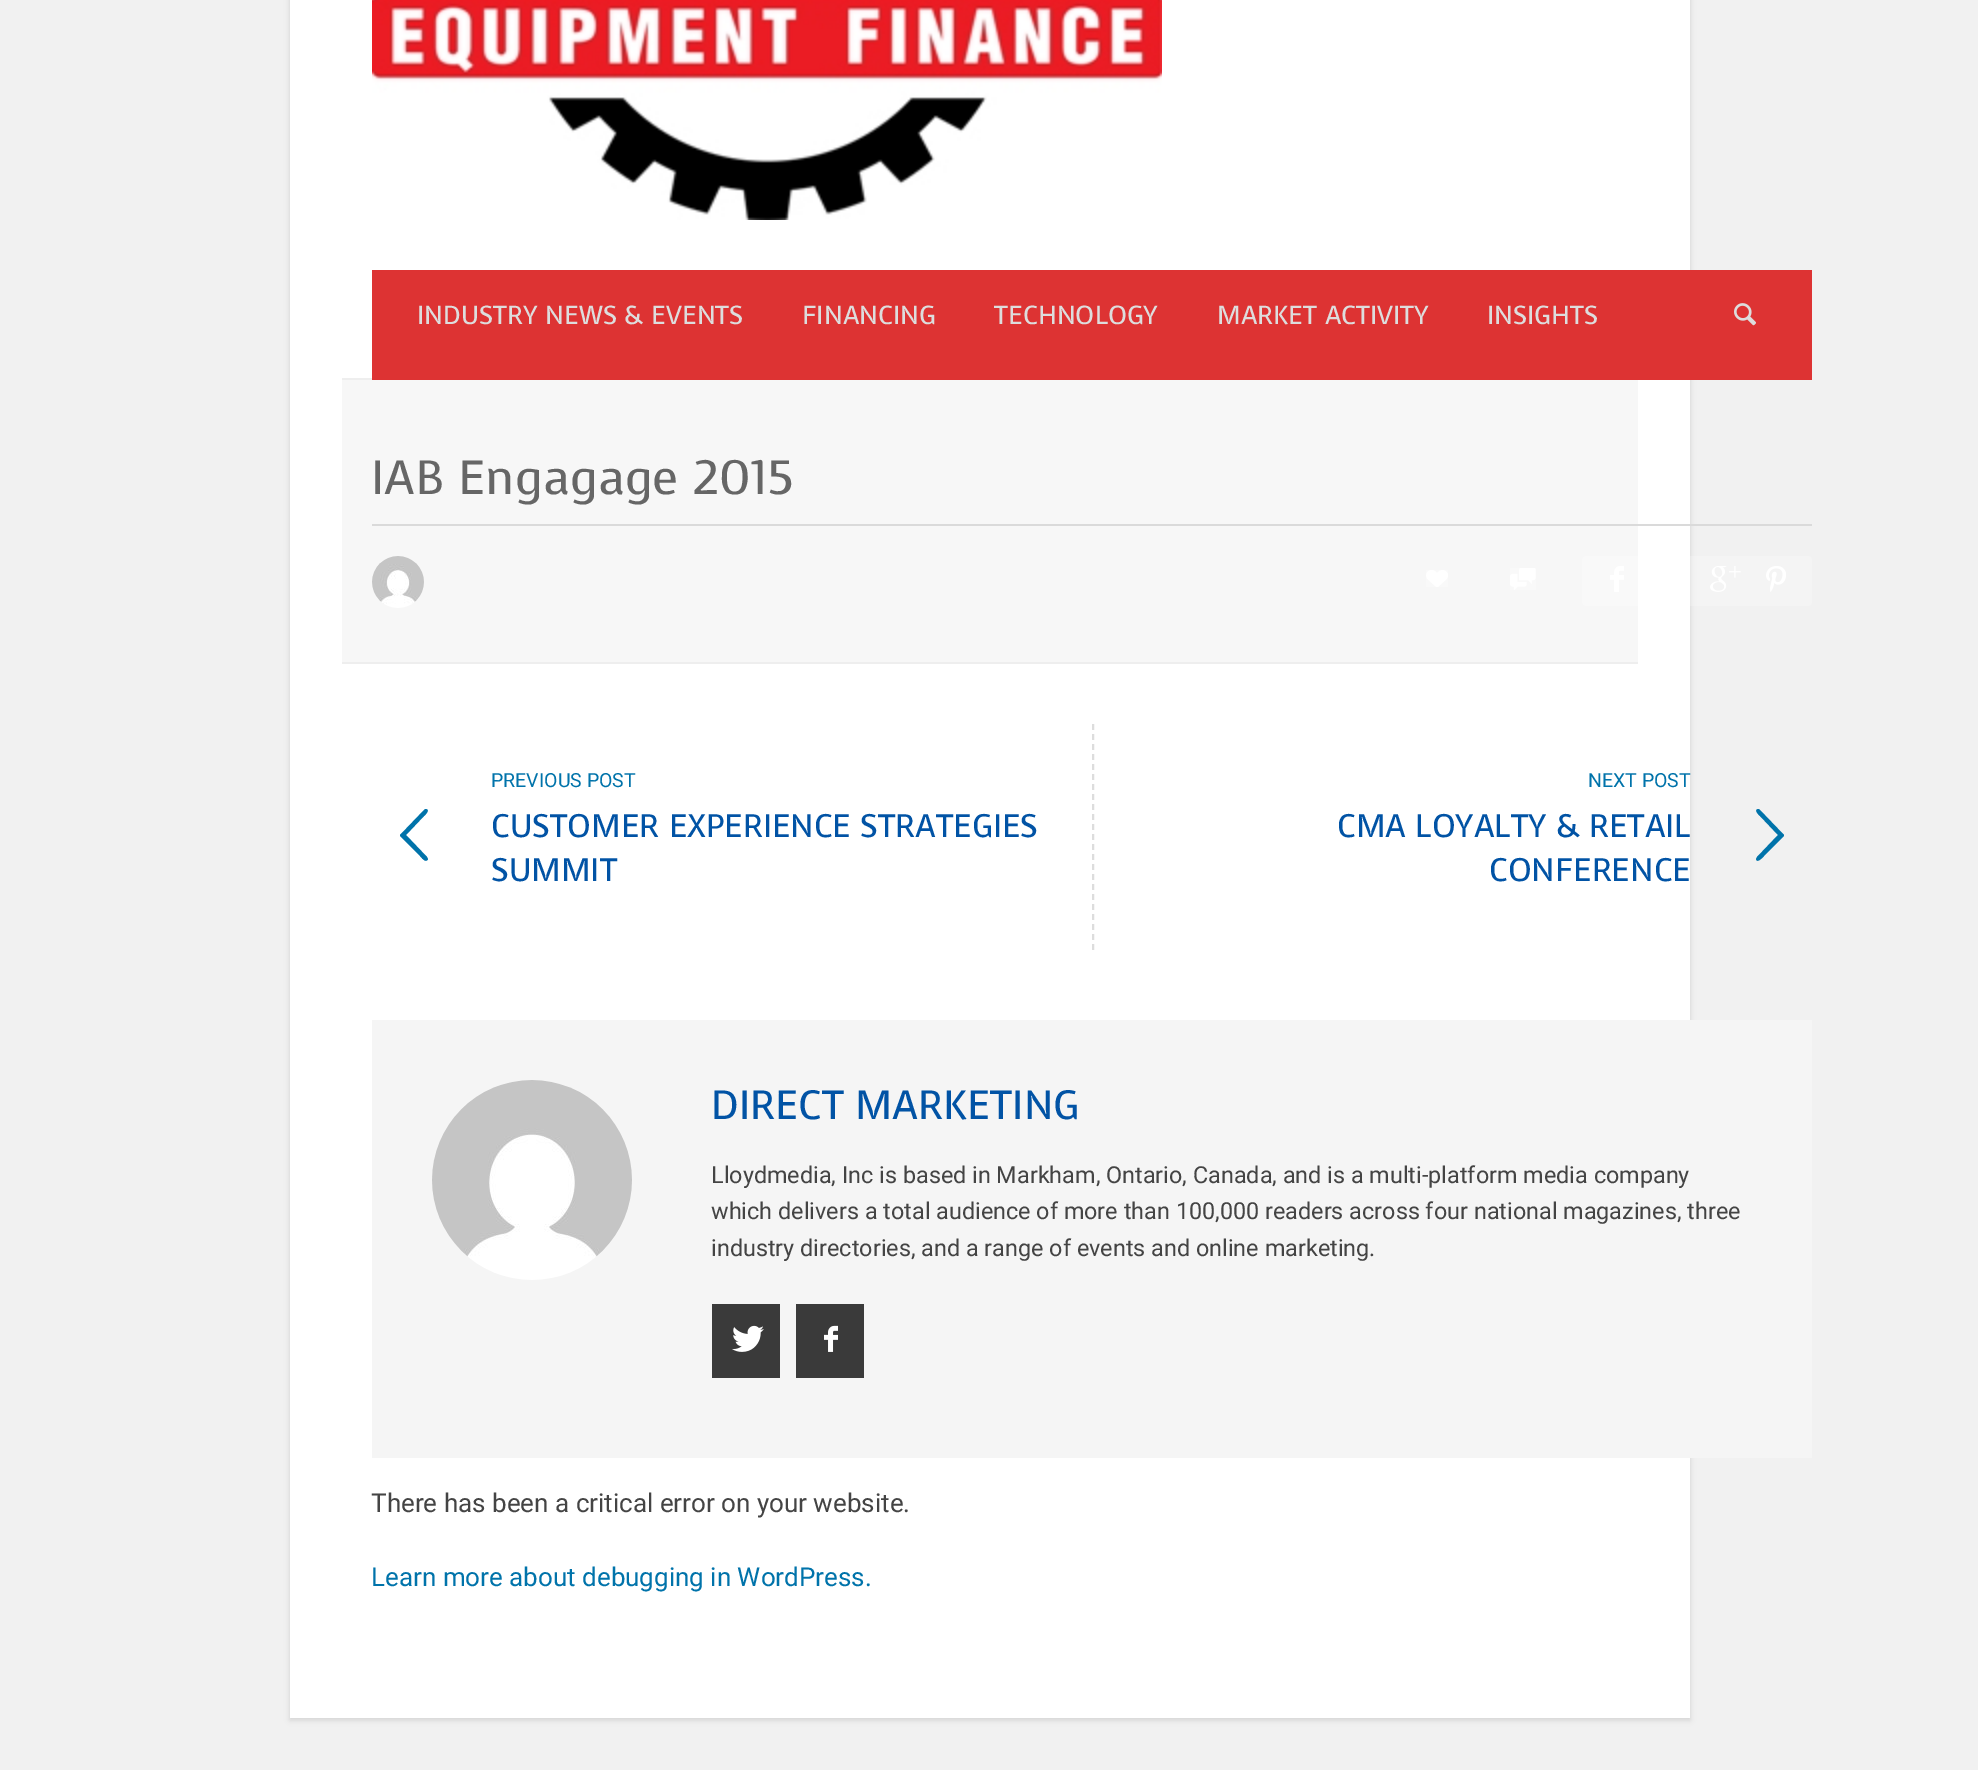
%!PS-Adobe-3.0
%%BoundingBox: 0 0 1978 1770
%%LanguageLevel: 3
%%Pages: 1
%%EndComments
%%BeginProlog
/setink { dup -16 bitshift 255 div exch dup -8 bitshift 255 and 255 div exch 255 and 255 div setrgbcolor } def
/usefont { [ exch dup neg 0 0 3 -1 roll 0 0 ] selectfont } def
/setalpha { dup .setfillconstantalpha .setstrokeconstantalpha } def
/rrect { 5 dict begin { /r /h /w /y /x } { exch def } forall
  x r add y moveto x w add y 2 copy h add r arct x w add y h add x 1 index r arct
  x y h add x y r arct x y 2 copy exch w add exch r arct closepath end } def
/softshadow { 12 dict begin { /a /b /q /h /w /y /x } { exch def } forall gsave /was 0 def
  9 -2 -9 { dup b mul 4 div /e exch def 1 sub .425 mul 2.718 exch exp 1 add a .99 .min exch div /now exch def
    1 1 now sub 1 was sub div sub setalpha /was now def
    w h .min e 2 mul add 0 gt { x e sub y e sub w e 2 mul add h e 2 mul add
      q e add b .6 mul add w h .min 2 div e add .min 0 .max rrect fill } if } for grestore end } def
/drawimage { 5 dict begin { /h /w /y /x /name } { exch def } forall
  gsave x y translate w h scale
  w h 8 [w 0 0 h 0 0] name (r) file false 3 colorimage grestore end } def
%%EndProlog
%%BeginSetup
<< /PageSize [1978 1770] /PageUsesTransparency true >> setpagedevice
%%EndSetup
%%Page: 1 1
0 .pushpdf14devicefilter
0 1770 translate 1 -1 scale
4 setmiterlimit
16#F1F1F1 setink
0 0 1978 1770 rectfill
16#000000 setink
290 -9 1400 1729 0 3 0.13 softshadow
16#FFFFFF setink
290 0 1400 1718 rectfill
(img1.raw) 372 0 790 220 drawimage
16#DD3333 setink
372 270 1440 110 rectfill
/Voces-Regular 26 usefont
16#DDDDDD setink
[
    [(INDUSTRY NEWS & EVENTS) 417 324]
    [(FINANCING) 802 324]
    [(TECHNOLOGY) 994 324]
    [(MARKET ACTIVITY) 1217 324]
    [(INSIGHTS) 1487 324]
] { aload pop moveto show } forall
(img2.raw) 1734 303 22 23 drawimage
[
    [342 378 30 2 16#EEEEEE]
    [342 380 1296 282 16#F7F7F7]
    [342 662 1296 2 16#EEEEEE]
    [372 524 1440 2 16#DADADA]
] { aload pop setink rectfill } forall
/Voces-Regular 48 usefont
16#666666 setink
371 494 moveto (IAB Engagage 2015) show
(img3.raw) 372 556 52 52 drawimage
(img4.raw) 1426 570 22 17 drawimage
(img5.raw) 1510 568 26 22 drawimage
0.2 setalpha
16#FFFFFF setink
1582 556 230 50 4 rrect fill
1 setalpha
(img6.raw) 1610 566 14 26 drawimage
(img7.raw) 1710 566 31 26 drawimage
(img8.raw) 1766 566 20 26 drawimage
16#0073AA setink
427 857 moveto 428 859 lineto 426 864 421 857 420 856 curveto 400 836 lineto 400 835 lineto 425 809 lineto 426 809 lineto 431 810 424 816 424 816 curveto 406 835 lineto closepath fill
/Roboto-Regular 19.5 usefont
491 787 moveto (PREVIOUS POST) show
/Voces-Regular 32.5 usefont
16#0153A5 setink
491 837 moveto (CUSTOMER EXPERIENCE STRATEGIES) show
491 881 moveto (SUMMIT) show
16#DDDDDD setink
2 setlinewidth
[6 4] 0 setdash
1093 724 moveto 1093 950 lineto stroke
/Roboto-Regular 19.5 usefont
16#0073AA setink
1588 787 moveto (NEXT POST) show
/Voces-Regular 32.5 usefont
16#0153A5 setink
1337 837 moveto (CMA LOYALTY & RETAIL) show
1489 881 moveto (CONFERENCE) show
16#0073AA setink
1757 857 moveto 1778 835 lineto 1760 816 lineto 1760 816 1753 810 1758 809 curveto 1759 809 lineto 1784 835 lineto 1784 836 lineto 1764 856 lineto 1763 857 1757 864 1756 859 curveto closepath fill
16#F5F5F5 setink
372 1020 1440 438 rectfill
(img9.raw) 432 1080 200 200 drawimage
/Voces-Regular 40.75 usefont
16#0153A5 setink
711 1119 moveto (DIRECT MARKETING) show
/Roboto-Regular 23.4 usefont
16#444444 setink
[
    [(Lloydmedia, Inc is based in Markham, Ontario, Canada, and is a multi-platform media company) 711 1183]
    [(which delivers a total audience of more than 100,000 readers across four national magazines, three) 711 1219]
    [(industry directories, and a range of events and online marketing.) 711 1256]
] { aload pop moveto show } forall
16#3A3A3A setink
712 1304 68 74 rectfill
(img10.raw) 732 1325 32 27 drawimage
796 1304 68 74 rectfill
(img11.raw) 824 1325 14 27 drawimage
/Roboto-Regular 26 usefont
16#444444 setink
371 1512 moveto (There has been a critical error on your website.) show
16#0073AA setink
371 1586 moveto (Learn more about debugging in WordPress.) show
.poppdf14devicefilter showpage
%%EOF
